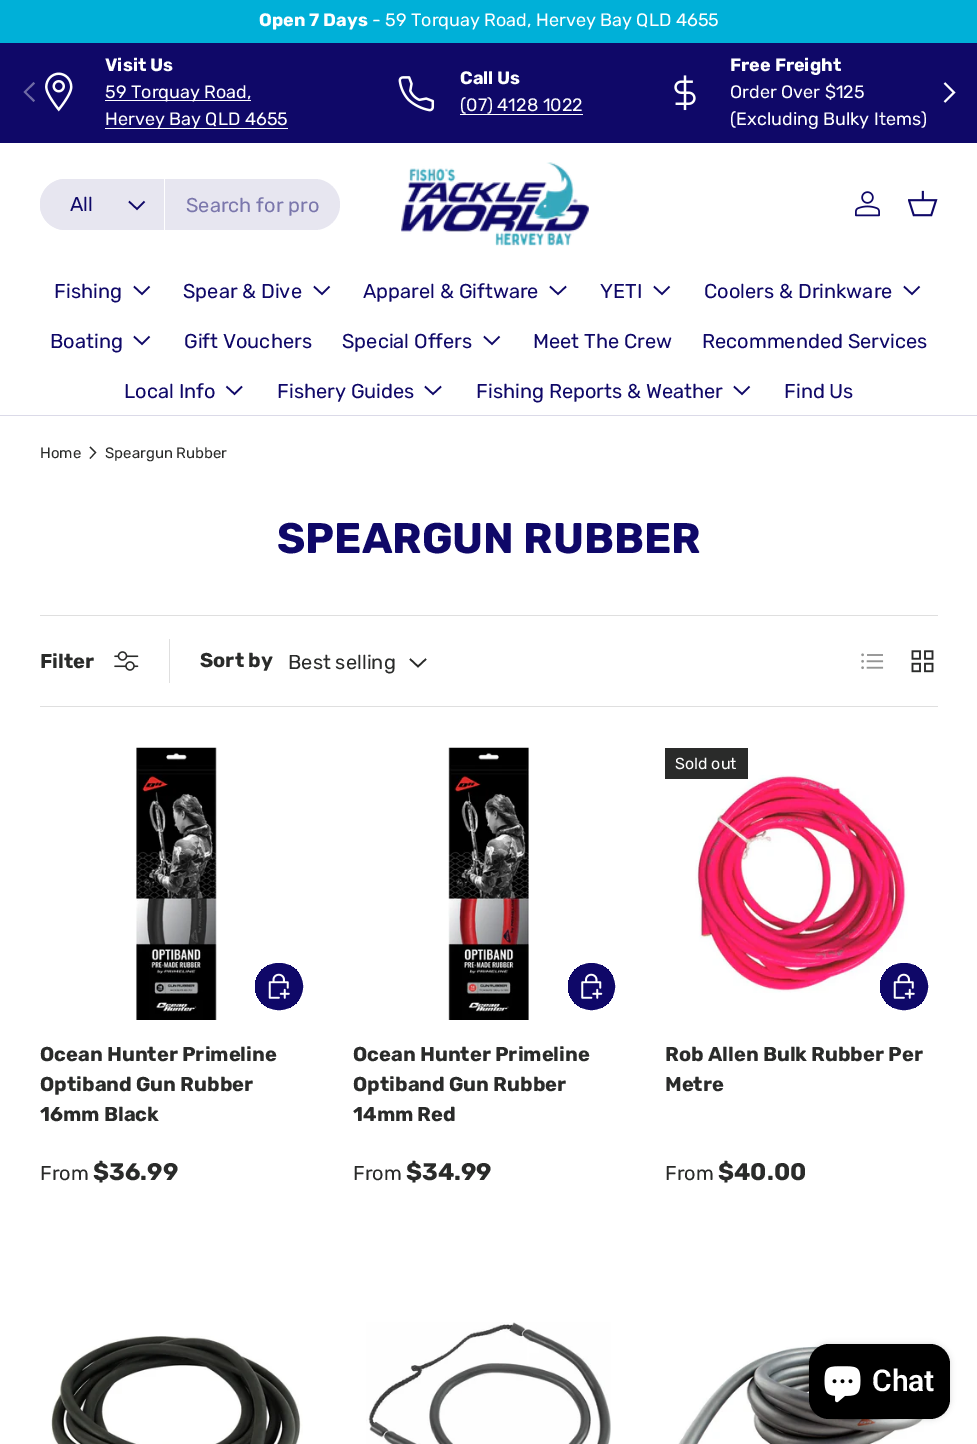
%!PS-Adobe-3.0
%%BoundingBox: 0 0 977 1444
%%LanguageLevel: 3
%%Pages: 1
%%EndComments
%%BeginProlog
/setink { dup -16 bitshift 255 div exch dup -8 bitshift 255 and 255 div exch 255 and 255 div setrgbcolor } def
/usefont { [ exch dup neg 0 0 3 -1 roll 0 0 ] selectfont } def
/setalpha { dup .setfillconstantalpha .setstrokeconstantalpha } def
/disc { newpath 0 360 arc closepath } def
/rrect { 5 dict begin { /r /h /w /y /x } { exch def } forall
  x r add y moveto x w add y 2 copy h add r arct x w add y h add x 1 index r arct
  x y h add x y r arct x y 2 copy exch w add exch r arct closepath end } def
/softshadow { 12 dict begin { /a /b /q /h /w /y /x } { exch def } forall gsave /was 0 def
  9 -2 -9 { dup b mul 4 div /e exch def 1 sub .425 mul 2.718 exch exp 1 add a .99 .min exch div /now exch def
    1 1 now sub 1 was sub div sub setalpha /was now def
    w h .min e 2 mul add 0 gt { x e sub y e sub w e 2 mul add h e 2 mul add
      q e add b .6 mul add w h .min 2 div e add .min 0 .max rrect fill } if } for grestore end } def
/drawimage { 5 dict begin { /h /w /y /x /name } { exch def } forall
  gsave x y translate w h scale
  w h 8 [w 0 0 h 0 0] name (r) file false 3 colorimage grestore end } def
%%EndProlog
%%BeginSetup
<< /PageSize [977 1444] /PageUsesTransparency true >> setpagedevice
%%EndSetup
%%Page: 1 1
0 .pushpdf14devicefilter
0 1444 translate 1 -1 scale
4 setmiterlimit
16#FFFFFF setink
0 0 977 1444 rectfill
16#00B0D8 setink
0 0 977 43 rectfill
/Rubik-Bold 18 usefont
16#FFFFFF setink
259 26 moveto (Open 7 Days) show
/Rubik-Regular 18 usefont
372 26 moveto (- 59 Torquay Road, Hervey Bay QLD 4655) show
16#0F0868 setink
0 43 977 100 rectfill
(img1.raw) 45 72 28 40 drawimage
/Rubik-Bold 18 usefont
16#FFFFFF setink
105 71 moveto (Visit Us) show
105 100 146 1 rectfill
/Rubik-Regular 18 usefont
105 98 moveto (59 Torquay Road,) show
105 128 183 1 rectfill
105 125 moveto (Hervey Bay QLD 4655) show
(img2.raw) 398 76 37 36 drawimage
/Rubik-Bold 18 usefont
460 84 moveto (Call Us) show
/Rubik-Regular 18 usefont
460 111 moveto (\(07\) 4128 1022) show
460 114 123 1 rectfill
(img3.raw) 674 75 22 36 drawimage
/Rubik-Bold 18 usefont
730 71 moveto (Free Freight) show
/Rubik-Regular 18 usefont
730 98 moveto (Order Over $125) show
730 125 moveto (\(Excluding Bulky Items\)) show
16#6F6BA4 setink
23.5 92 moveto 33.5 82 lineto 35 83.5 lineto 26 92 lineto 35 100.5 lineto 33.5 102 lineto closepath fill
16#FFFFFF setink
1.9 setlinewidth
944.5 83 moveto 954 92.5 lineto 944.5 102 lineto stroke
16#DBDAE8 setink
0 415 977 1 rectfill
16#E7E6F0 setink
40 179 300 51 25.5 rrect fill
65.5 179 moveto 165 179 lineto 165 230 lineto 65.5 230 lineto 51.5 230 40 218.5 40 204.5 curveto 40 190.5 51.5 179 65.5 179 curveto closepath fill
16#FFFFFF setink
164 179 1 51 rectfill
/Rubik-Regular 20 usefont
16#0F0868 setink
70 211 moveto (All) show
1.6 setlinewidth
144.5 201.5 moveto 137 209 lineto 129 201.5 lineto stroke
16#7B77AC setink
186 212 moveto (Search for pro) show
(img4.raw) 401 162 188 84 drawimage
(img5.raw) 855 191 25 26 drawimage
(img6.raw) 908 190 30 27 drawimage
16#0F0868 setink
54 298 moveto (Fishing) show
149.5 286.5 moveto 142 294 lineto 134 286.5 lineto stroke
183 298 moveto (Spear & Dive) show
329.5 286.5 moveto 322 294 lineto 314 286.5 lineto stroke
363 298 moveto (Apparel & Giftware) show
566 286.5 moveto 558 294 lineto 550 286.5 lineto stroke
600 298 moveto (YETI) show
669.5 286.5 moveto 662 294 lineto 654 286.5 lineto stroke
704 298 moveto (Coolers & Drinkware) show
919.5 286.5 moveto 912 294 lineto 904 286.5 lineto stroke
50 348 moveto (Boating) show
149.5 336.5 moveto 142 344 lineto 134 336.5 lineto stroke
184 348 moveto (Gift Vouchers) show
342 348 moveto (Special Offers) show
499.5 336.5 moveto 492 344 lineto 484 336.5 lineto stroke
[
    [(Meet The Crew) 533 348]
    [(Recommended Services) 702 348]
    [(Local Info) 124 398]
] { aload pop moveto show } forall
242 386.5 moveto 234.5 394 lineto 226.5 386.5 lineto stroke
277 398 moveto (Fishery Guides) show
441 386.5 moveto 433 394 lineto 425 386.5 lineto stroke
476 398 moveto (Fishing Reports & Weather) show
749.5 386.5 moveto 742 394 lineto 734 386.5 lineto stroke
784 398 moveto (Find Us) show
/Rubik-Regular 15 usefont
16#2A2B2A setink
40 458 moveto (Home) show
1.1 setlinewidth
90 447 moveto 95.5 452.5 lineto 90 458.5 lineto stroke
105 458 moveto (Speargun Rubber) show
/Rubik-Bold 42.75 usefont
16#0F0868 setink
277 553 moveto (SPEARGUN RUBBER) show
16#DFDFDF setink
40 615 898 1 rectfill
40 706 898 1 rectfill
/Rubik-Bold 20 usefont
16#2A2B2A setink
40 668 moveto (Filter) show
(img7.raw) 114 651 25 20 drawimage
16#DFDFDF setink
169 639 1 44 rectfill
16#2A2B2A setink
200 667 moveto (Sort by) show
/Rubik-Regular 20 usefont
288 669 moveto (Best selling) show
1.6 setlinewidth
426 659 moveto 418 666.5 lineto 410 659 lineto stroke
(img8.raw) 861 653 23 17 drawimage
(img9.raw) 911 650 23 23 drawimage
(img10.raw) 136 747 81 273 drawimage
gsave
255 963 48 47 23.5 rrect clip newpath
gsave 255 965 moveto 300 965 lineto 300 1008 lineto 255 1008 lineto closepath clip newpath
<< /ShadingType 2 /ColorSpace /DeviceRGB /Coords [171 970 301 1002] /Extend [true true] /Function << /FunctionType 3 /Domain [0 1] /Functions [<< /FunctionType 2 /Domain [0 1] /C0 [0.22 0.192 0.541] /C1 [0.22 0.192 0.541] /N 1 >> << /FunctionType 2 /Domain [0 1] /C0 [0.059 0.031 0.408] /C1 [0.059 0.031 0.408] /N 1 >>] /Bounds [0.6] /Encode [0 1 0 1] >> >> shfill grestore
grestore
16#0F0868 setink
3 setlinewidth
256.5 964.5 45 44 22 rrect stroke
(img11.raw) 268 973 22 26 drawimage
/Rubik-Bold 20 usefont
16#2A2B2A setink
[
    [(Ocean Hunter Primeline) 40 1061]
    [(Optiband Gun Rubber) 40 1091]
    [(16mm Black) 40 1121]
] { aload pop moveto show } forall
/Rubik-Regular 20 usefont
40 1180 moveto (From) show
/Rubik-Bold 24 usefont
93 1180 moveto ($36.99) show
(img12.raw) 448 747 81 273 drawimage
gsave
568 963 47 47 23.5 rrect clip newpath
gsave 568 965 moveto 613 965 lineto 613 1008 lineto 568 1008 lineto closepath clip newpath
<< /ShadingType 2 /ColorSpace /DeviceRGB /Coords [484 970 614 1002] /Extend [true true] /Function << /FunctionType 3 /Domain [0 1] /Functions [<< /FunctionType 2 /Domain [0 1] /C0 [0.22 0.192 0.541] /C1 [0.22 0.192 0.541] /N 1 >> << /FunctionType 2 /Domain [0 1] /C0 [0.059 0.031 0.408] /C1 [0.059 0.031 0.408] /N 1 >>] /Bounds [0.6] /Encode [0 1 0 1] >> >> shfill grestore
grestore
16#0F0868 setink
591.5 986.5 22 disc stroke
(img13.raw) 581 973 22 26 drawimage
/Rubik-Bold 20 usefont
16#2A2B2A setink
[
    [(Ocean Hunter Primeline) 353 1061]
    [(Optiband Gun Rubber) 353 1091]
    [(14mm Red) 353 1121]
] { aload pop moveto show } forall
/Rubik-Regular 20 usefont
353 1180 moveto (From) show
/Rubik-Bold 24 usefont
406 1180 moveto ($34.99) show
(img14.raw) 695 775 213 218 drawimage
665 748 83 31 rectfill
/Rubik-Regular 16 usefont
16#FFFFFF setink
675 769 moveto (Sold out) show
gsave
880 963 48 47 23.5 rrect clip newpath
gsave 880 965 moveto 925 965 lineto 925 1008 lineto 880 1008 lineto closepath clip newpath
<< /ShadingType 2 /ColorSpace /DeviceRGB /Coords [796 970 926 1002] /Extend [true true] /Function << /FunctionType 3 /Domain [0 1] /Functions [<< /FunctionType 2 /Domain [0 1] /C0 [0.22 0.192 0.541] /C1 [0.22 0.192 0.541] /N 1 >> << /FunctionType 2 /Domain [0 1] /C0 [0.059 0.031 0.408] /C1 [0.059 0.031 0.408] /N 1 >>] /Bounds [0.6] /Encode [0 1 0 1] >> >> shfill grestore
grestore
16#0F0868 setink
881.5 964.5 45 44 22 rrect stroke
(img11.raw) 893 973 22 26 drawimage
/Rubik-Bold 20 usefont
16#2A2B2A setink
665 1061 moveto (Rob Allen Bulk Rubber Per) show
665 1091 moveto (Metre) show
/Rubik-Regular 20 usefont
665 1180 moveto (From) show
/Rubik-Bold 24 usefont
718 1180 moveto ($40.00) show
(img15.raw) 51 1336 252 108 drawimage
(img16.raw) 366 1322 245 122 drawimage
(img17.raw) 678 1346 254 98 drawimage
16#000000 setink
809 1344 141 75 20 3 0.15 softshadow
809 1344 141 75 20 rrect fill
(img18.raw) 824 1366 37 37 drawimage
/Roboto-SemiBold 30 usefont
16#FFFFFF setink
872 1391 moveto (Chat) show
.poppdf14devicefilter showpage
%%EOF
